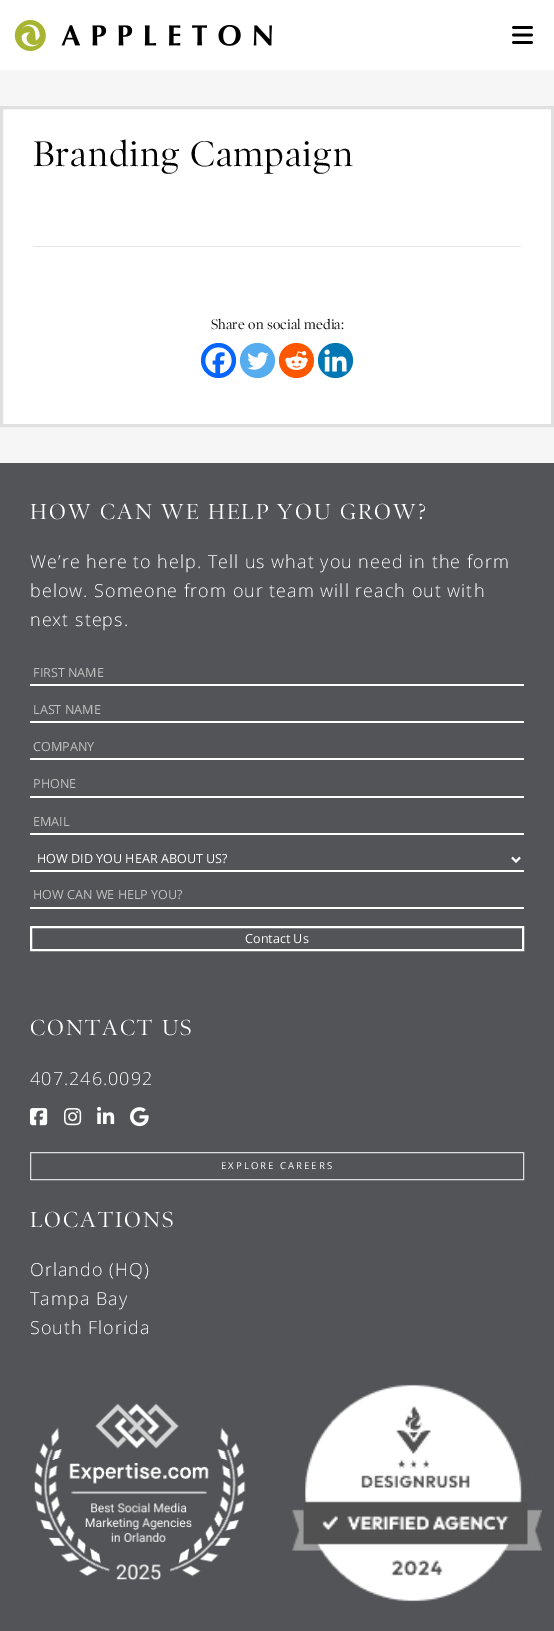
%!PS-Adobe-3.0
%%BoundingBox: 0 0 554 1631
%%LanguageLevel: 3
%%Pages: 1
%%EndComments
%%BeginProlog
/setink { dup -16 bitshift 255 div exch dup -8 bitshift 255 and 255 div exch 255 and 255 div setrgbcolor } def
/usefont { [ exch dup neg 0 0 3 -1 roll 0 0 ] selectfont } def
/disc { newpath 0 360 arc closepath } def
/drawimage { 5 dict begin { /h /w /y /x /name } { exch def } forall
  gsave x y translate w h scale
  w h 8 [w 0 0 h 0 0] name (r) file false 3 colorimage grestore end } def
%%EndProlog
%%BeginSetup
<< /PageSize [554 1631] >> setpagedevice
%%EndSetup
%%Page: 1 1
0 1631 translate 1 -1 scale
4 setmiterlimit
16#F6F6F6 setink
0 0 554 1631 rectfill
16#FFFFFF setink
0 0 554 70 rectfill
(img1.raw) 14 20 258 31 drawimage
(img2.raw) 512 26 21 18 drawimage
1.5 107.5 moveto 552.5 107.5 lineto 552.5 425.5 lineto 1.5 425.5 lineto closepath gsave fill grestore
16#E0E0E0 setink
3 setlinewidth
stroke
/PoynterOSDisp-Regular 36 usefont
16#000000 setink
33 166 moveto 0.9 0 (Branding Campaign) ashow
16#E6E6E6 setink
33 246 488 1 rectfill
/PoynterOSDisp-Regular 14 usefont
16#000000 setink
211 329 moveto (Share on social media:) show
16#0765FE setink
218.5 360.5 17.5 disc fill
(img3.raw) 205 347 27 27 drawimage
16#55ACEE setink
257.5 360.5 17.5 disc fill
(img4.raw) 247 352 22 18 drawimage
16#FF5700 setink
296.5 360.5 17.5 disc fill
(img5.raw) 285 351 23 19 drawimage
16#0077B5 setink
335.5 360.5 17.5 disc fill
(img6.raw) 324 349 23 23 drawimage
16#535458 setink
0 463 554 1168 rectfill
/PoynterOSDisp-Regular 22 usefont
16#FFFFFF setink
30 519 moveto 2 0 (HOW CAN WE HELP YOU GROW?) ashow
/OpenSans-Light 18 usefont
30 568 moveto 1 0 (We’re here to help. Tell us what you need in the form) ashow
30 597 moveto 1 0 (below. Someone from our team will reach out with) ashow
30 626 moveto 1 0 (next steps.) ashow
30 684 494 2 rectfill
/OpenSans-Regular 12.6 usefont
16#C1C1C1 setink
33 677 moveto (FIRST NAME) show
16#FFFFFF setink
30 721 494 2 rectfill
16#C1C1C1 setink
33 714 moveto (LAST NAME) show
16#FFFFFF setink
30 758 494 2 rectfill
16#C1C1C1 setink
33 751 moveto (COMPANY) show
16#FFFFFF setink
30 796 494 2 rectfill
16#C1C1C1 setink
33 788 moveto (PHONE) show
16#FFFFFF setink
30 833 494 2 rectfill
16#C1C1C1 setink
33 826 moveto (EMAIL) show
16#FFFFFF setink
30 870 494 2 rectfill
2 setlinewidth
512 857.5 moveto 516 861.5 lineto 520 857.5 lineto stroke
37 863 moveto (HOW DID YOU HEAR ABOUT US?) show
30 907 494 2 rectfill
16#C1C1C1 setink
33 899 moveto (HOW CAN WE HELP YOU?) show
16#FFFFFF setink
31 927 492 23 rectstroke
245 943 moveto (Contact Us) show
/PoynterOSDisp-Regular 22 usefont
30 1035 moveto 2 0 (CONTACT US) ashow
/OpenSans-Light 18 usefont
30 1085 moveto 1 0 (407.246.0092) ashow
(img7.raw) 30 1108 18 18 drawimage
(img8.raw) 64 1108 18 18 drawimage
(img9.raw) 97 1106 18 18 drawimage
(img10.raw) 130 1107 19 20 drawimage
16#DDDDDD setink
1 setlinewidth
30.5 1152.5 493 27 rectstroke
/OpenSans-Regular 9.6 usefont
16#FFFFFF setink
221 1169 moveto 2 0 (EXPLORE CAREERS) ashow
/PoynterOSDisp-Regular 22 usefont
30 1227 moveto 2 0 (LOCATIONS) ashow
/OpenSans-Light 18 usefont
30 1276 moveto 1 0 (Orlando \(HQ\)) ashow
30 1305 moveto 1 0 (Tampa Bay) ashow
30 1334 moveto 1 0 (South Florida) ashow
(img11.raw) 34 1403 212 178 drawimage
(img12.raw) 292 1384 250 218 drawimage
showpage
%%EOF
